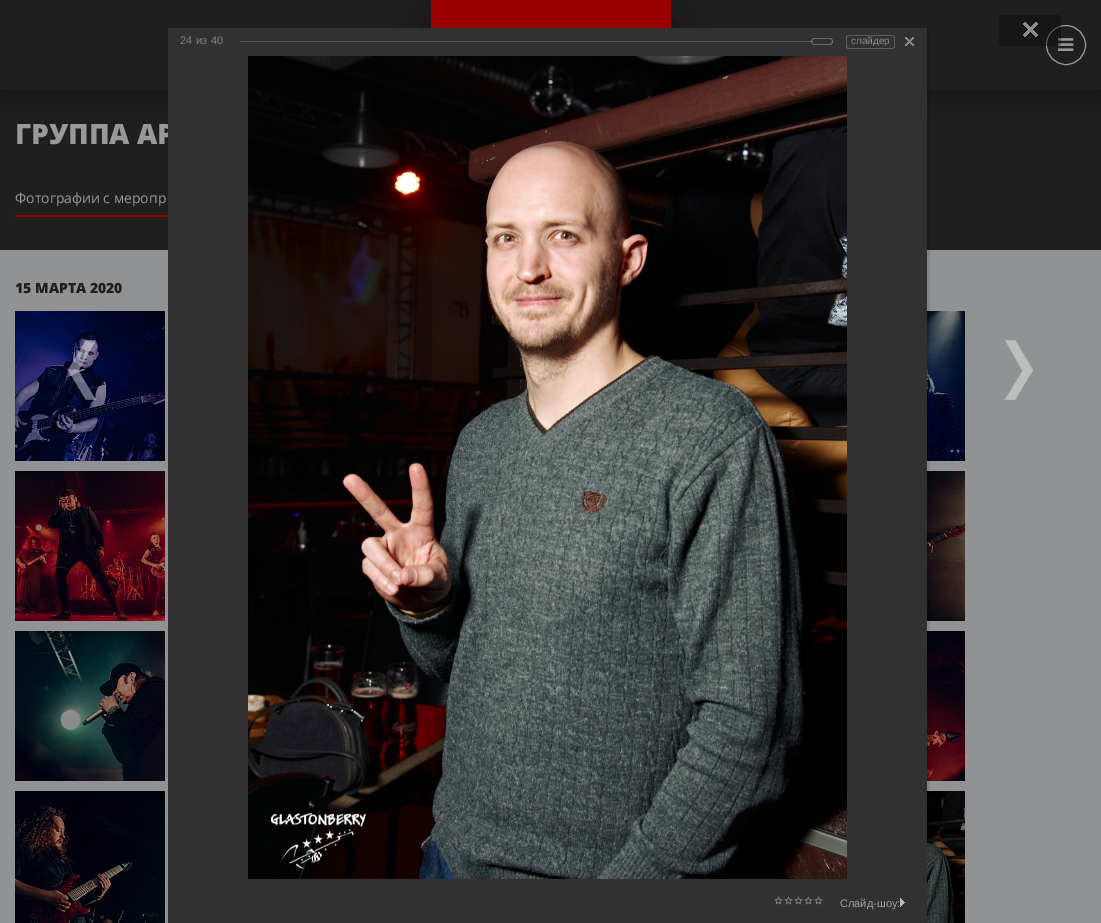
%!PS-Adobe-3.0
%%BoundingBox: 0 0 1101 923
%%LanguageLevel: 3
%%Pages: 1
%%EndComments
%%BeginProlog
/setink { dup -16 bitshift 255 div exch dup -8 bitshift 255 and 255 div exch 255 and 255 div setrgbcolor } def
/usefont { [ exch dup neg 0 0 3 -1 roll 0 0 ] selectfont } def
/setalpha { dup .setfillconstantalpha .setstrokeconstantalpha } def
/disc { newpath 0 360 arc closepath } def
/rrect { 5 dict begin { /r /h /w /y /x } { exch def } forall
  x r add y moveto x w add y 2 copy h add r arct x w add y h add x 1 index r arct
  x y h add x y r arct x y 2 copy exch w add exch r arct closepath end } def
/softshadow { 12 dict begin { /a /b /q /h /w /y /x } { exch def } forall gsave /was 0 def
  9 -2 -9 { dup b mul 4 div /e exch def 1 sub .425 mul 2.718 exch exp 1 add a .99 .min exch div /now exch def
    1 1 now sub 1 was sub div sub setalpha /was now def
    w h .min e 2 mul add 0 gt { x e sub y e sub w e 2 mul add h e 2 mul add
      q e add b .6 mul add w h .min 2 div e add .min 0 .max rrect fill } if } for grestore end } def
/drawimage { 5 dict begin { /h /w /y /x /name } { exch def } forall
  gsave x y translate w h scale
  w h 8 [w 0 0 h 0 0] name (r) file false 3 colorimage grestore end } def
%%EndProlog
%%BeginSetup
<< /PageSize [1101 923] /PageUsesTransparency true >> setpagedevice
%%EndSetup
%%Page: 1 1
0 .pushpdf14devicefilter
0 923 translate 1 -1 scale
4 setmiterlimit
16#919293 setink
0 0 1101 923 rectfill
16#1F1F1F setink
0 90 1101 160 rectfill
16#000000 setink
0 0 1101 90 0 21 0.5 softshadow
16#1F1F1F setink
0 0 1101 90 rectfill
16#0C0000 setink
431 25 240 85 0 17.5 0.7 softshadow
16#990000 setink
431 0 240 28 rectfill
16#999999 setink
1066 45 19.5 disc stroke
(img1.raw) 1058 38 16 13 drawimage
/OpenSans-ExtraBold 28 usefont
15 144 moveto (ГРУППА АР) show
16#990000 setink
15 215 153 2 rectfill
/OpenSans-Regular 14 usefont
16#999999 setink
15 203 moveto (Фотографии с меропр) show
/OpenSans-ExtraBold 14 usefont
16#1F1F1F setink
15 293 moveto (15 МАРТА 2020) show
(img2.raw) 15 311 150 150 drawimage
(img3.raw) 927 311 38 150 drawimage
(img4.raw) 15 471 150 150 drawimage
(img5.raw) 927 471 38 150 drawimage
(img6.raw) 15 631 150 150 drawimage
(img7.raw) 927 631 38 150 drawimage
(img8.raw) 15 791 150 132 drawimage
(img9.raw) 927 791 38 132 drawimage
(img10.raw) 68 340 28 60 drawimage
0.1 setalpha
16#000000 setink
927 28 3 895 rectfill
1 setalpha
16#313131 setink
168 28 759 895 rectfill
/LiberationSans-Regular 11 usefont
16#838383 setink
[
    [(24) 180 44]
    [(из) 196 44]
    [(40) 211 44]
] { aload pop moveto show } forall
16#5A5A5A setink
240 41 571 1 rectfill
(img11.raw) 811 38 22 7 drawimage
(img12.raw) 846 35 46 14 drawimage
/LiberationSans-Regular 10 usefont
16#8C8C8C setink
851 44 moveto (слайдер) show
(img13.raw) 892 35 3 14 drawimage
(img14.raw) 905 37 9 9 drawimage
(img15.raw) 248 56 599 823 drawimage
(img16.raw) 774 896 9 9 drawimage
(img16.raw) 784 896 9 9 drawimage
(img16.raw) 794 896 9 9 drawimage
(img16.raw) 804 896 9 9 drawimage
(img16.raw) 814 896 9 9 drawimage
/LiberationSans-Regular 11 usefont
16#A2A2A2 setink
840 907 moveto (Слайд-шоу:) show
(img17.raw) 900 898 5 9 drawimage
(img18.raw) 999 15 62 31 drawimage
(img19.raw) 1005 340 28 60 drawimage
.poppdf14devicefilter showpage
%%EOF
